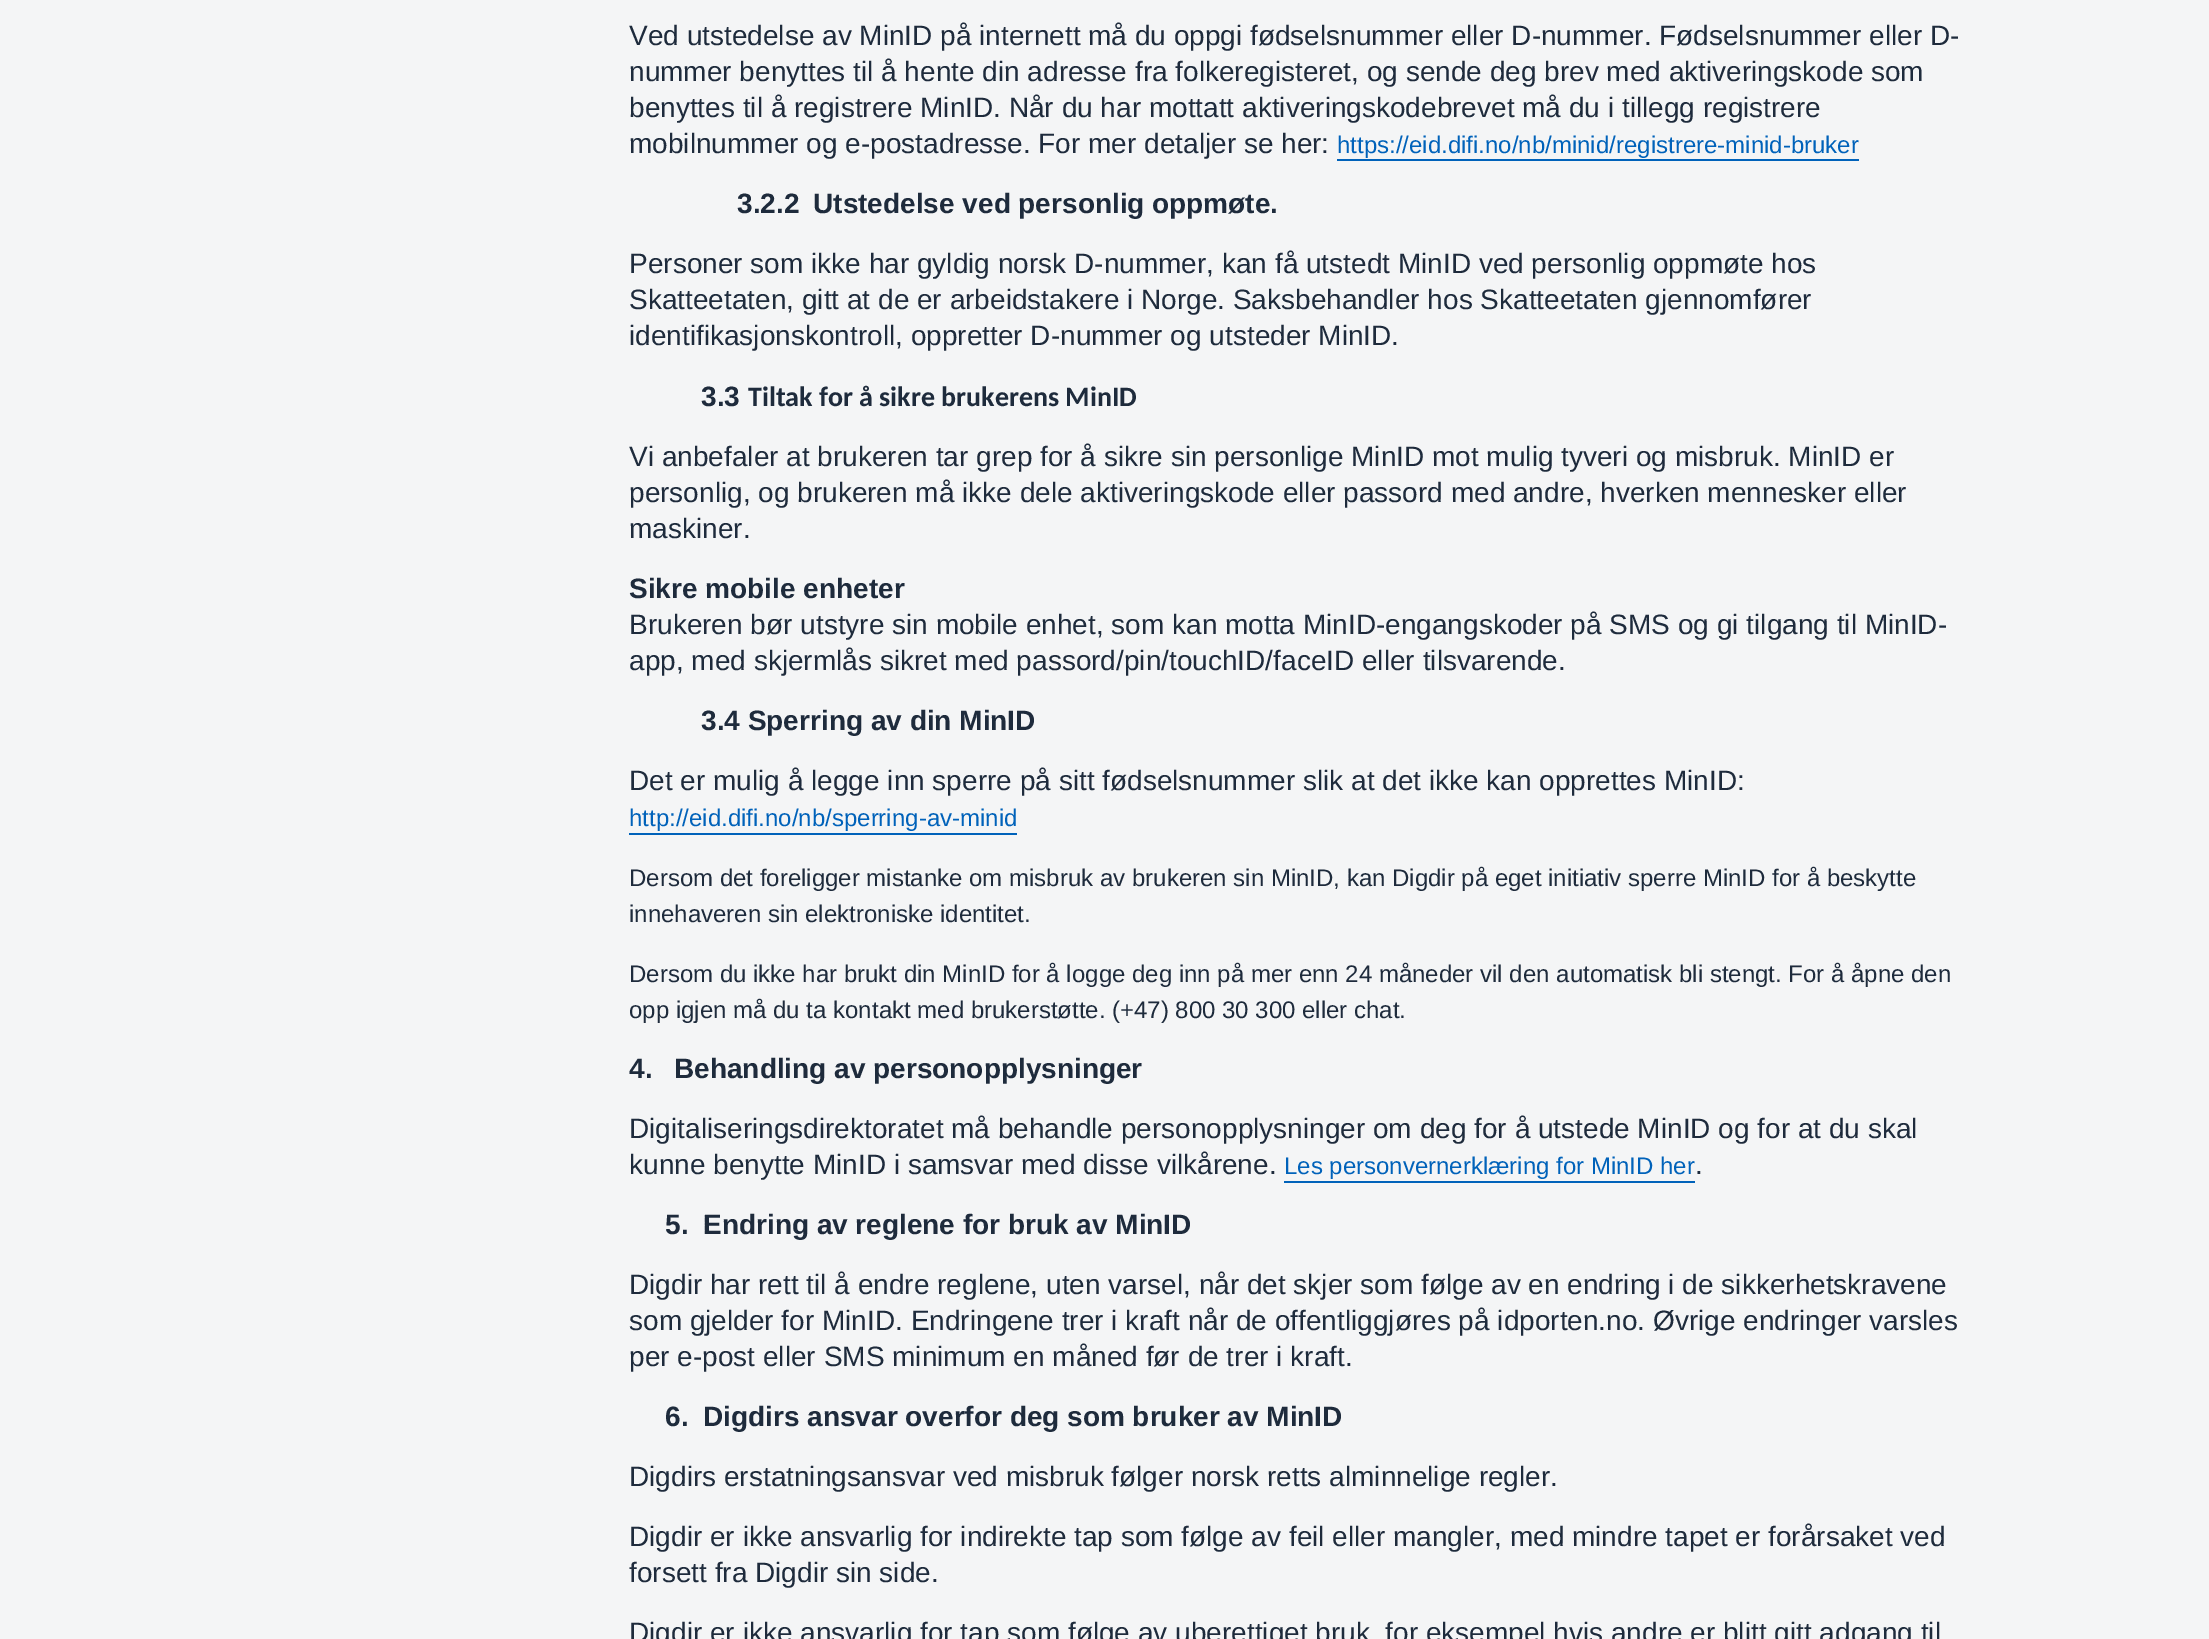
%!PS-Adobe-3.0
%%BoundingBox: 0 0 2209 1639
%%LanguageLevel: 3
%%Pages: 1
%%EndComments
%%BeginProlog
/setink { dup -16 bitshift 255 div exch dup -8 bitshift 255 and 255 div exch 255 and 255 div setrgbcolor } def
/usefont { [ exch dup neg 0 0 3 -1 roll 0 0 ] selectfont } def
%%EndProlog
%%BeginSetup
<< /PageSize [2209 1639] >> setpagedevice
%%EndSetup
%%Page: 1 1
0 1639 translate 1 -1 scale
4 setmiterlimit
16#F4F5F6 setink
0 0 2209 1639 rectfill
/LiberationSans-Regular 28 usefont
16#1E2B3C setink
[
    [(Ved utstedelse av MinID på internett må du oppgi fødselsnummer eller D-nummer. Fødselsnummer eller D-) 629 45]
    [(nummer benyttes til å hente din adresse fra folkeregisteret, og sende deg brev med aktiveringskode som) 629 81]
    [(benyttes til å registrere MinID. Når du har mottatt aktiveringskodebrevet må du i tillegg registrere) 629 117]
    [(mobilnummer og e-postadresse. For mer detaljer se her:) 629 153]
] { aload pop moveto show } forall
/LiberationSans-Regular 24 usefont
16#0062BA setink
1337 153 moveto (https://eid.difi.no/nb/minid/registrere-minid-bruker) show
1337 159 522 2 rectfill
/LiberationSans-Bold 28 usefont
16#1E2B3C setink
737 213 moveto (3.2.2) show
813 213 moveto (Utstedelse ved personlig oppmøte.) show
/LiberationSans-Regular 28 usefont
[
    [(Personer som ikke har gyldig norsk D-nummer, kan få utstedt MinID ved personlig oppmøte hos) 629 273]
    [(Skatteetaten, gitt at de er arbeidstakere i Norge. Saksbehandler hos Skatteetaten gjennomfører) 629 309]
    [(identifikasjonskontroll, oppretter D-nummer og utsteder MinID.) 629 345]
] { aload pop moveto show } forall
/LiberationSans-Bold 28 usefont
701 406 moveto (3.3) show
/Carlito-Bold 28 usefont
748 406 moveto (Tiltak for å sikre brukerens MinID) show
/LiberationSans-Regular 28 usefont
[
    [(Vi anbefaler at brukeren tar grep for å sikre sin personlige MinID mot mulig tyveri og misbruk. MinID er) 629 466]
    [(personlig, og brukeren må ikke dele aktiveringskode eller passord med andre, hverken mennesker eller) 629 502]
    [(maskiner.) 629 538]
] { aload pop moveto show } forall
/LiberationSans-Bold 28 usefont
629 598 moveto (Sikre mobile enheter) show
/LiberationSans-Regular 28 usefont
629 634 moveto (Brukeren bør utstyre sin mobile enhet, som kan motta MinID-engangskoder på SMS og gi tilgang til MinID-) show
629 670 moveto (app, med skjermlås sikret med passord/pin/touchID/faceID eller tilsvarende.) show
/LiberationSans-Bold 28 usefont
701 730 moveto (3.4 Sperring av din MinID) show
/LiberationSans-Regular 28 usefont
629 790 moveto (Det er mulig å legge inn sperre på sitt fødselsnummer slik at det ikke kan opprettes MinID:) show
/LiberationSans-Regular 24 usefont
16#0062BA setink
629 826 moveto (http://eid.difi.no/nb/sperring-av-minid) show
629 833 388 2 rectfill
16#1E2B3C setink
[
    [(Dersom det foreligger mistanke om misbruk av brukeren sin MinID, kan Digdir på eget initiativ sperre MinID for å beskytte) 629 886]
    [(innehaveren sin elektroniske identitet.) 629 922]
    [(Dersom du ikke har brukt din MinID for å logge deg inn på mer enn 24 måneder vil den automatisk bli stengt. For å åpne den) 629 982]
    [(opp igjen må du ta kontakt med brukerstøtte. \(+47\) 800 30 300 eller chat.) 629 1018]
] { aload pop moveto show } forall
/LiberationSans-Bold 28 usefont
629 1078 moveto (4.) show
674 1078 moveto (Behandling av personopplysninger) show
/LiberationSans-Regular 28 usefont
629 1138 moveto (Digitaliseringsdirektoratet må behandle personopplysninger om deg for å utstede MinID og for at du skal) show
629 1174 moveto (kunne benytte MinID i samsvar med disse vilkårene.) show
/LiberationSans-Regular 24 usefont
16#0062BA setink
1284 1174 moveto (Les personvernerklæring for MinID her) show
1284 1181 411 2 rectfill
/LiberationSans-Regular 28 usefont
16#1E2B3C setink
1695 1174 moveto (.) show
/LiberationSans-Bold 28 usefont
665 1234 moveto (5.) show
703 1234 moveto (Endring av reglene for bruk av MinID) show
/LiberationSans-Regular 28 usefont
[
    [(Digdir har rett til å endre reglene, uten varsel, når det skjer som følge av en endring i de sikkerhetskravene) 629 1294]
    [(som gjelder for MinID. Endringene trer i kraft når de offentliggjøres på idporten.no. Øvrige endringer varsles) 629 1330]
    [(per e-post eller SMS minimum en måned før de trer i kraft.) 629 1366]
] { aload pop moveto show } forall
/LiberationSans-Bold 28 usefont
665 1426 moveto (6.) show
703 1426 moveto (Digdirs ansvar overfor deg som bruker av MinID) show
/LiberationSans-Regular 28 usefont
[
    [(Digdirs erstatningsansvar ved misbruk følger norsk retts alminnelige regler.) 629 1486]
    [(Digdir er ikke ansvarlig for indirekte tap som følge av feil eller mangler, med mindre tapet er forårsaket ved) 629 1546]
    [(forsett fra Digdir sin side.) 629 1582]
    [(Digdir er ikke ansvarlig for tap som følge av uberettiget bruk, for eksempel hvis andre er blitt gitt adgang til) 629 1642]
] { aload pop moveto show } forall
showpage
%%EOF
